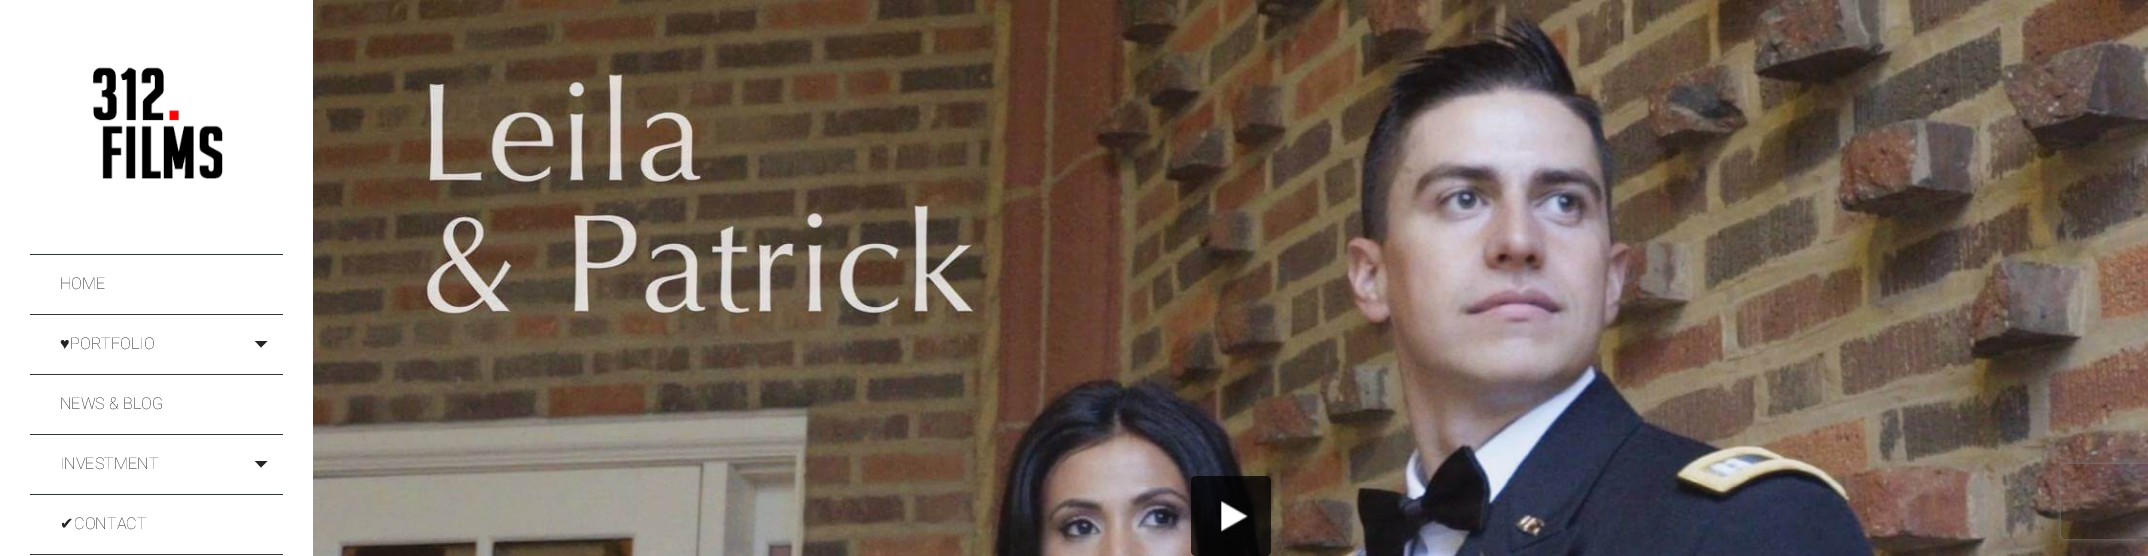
%!PS-Adobe-3.0
%%BoundingBox: 0 0 2148 556
%%LanguageLevel: 3
%%Pages: 1
%%EndComments
%%BeginProlog
/setink { dup -16 bitshift 255 div exch dup -8 bitshift 255 and 255 div exch 255 and 255 div setrgbcolor } def
/usefont { [ exch dup neg 0 0 3 -1 roll 0 0 ] selectfont } def
/setalpha { dup .setfillconstantalpha .setstrokeconstantalpha } def
/rrect { 5 dict begin { /r /h /w /y /x } { exch def } forall
  x r add y moveto x w add y 2 copy h add r arct x w add y h add x 1 index r arct
  x y h add x y r arct x y 2 copy exch w add exch r arct closepath end } def
/softshadow { 12 dict begin { /a /b /q /h /w /y /x } { exch def } forall gsave /was 0 def
  9 -2 -9 { dup b mul 4 div /e exch def 1 sub .425 mul 2.718 exch exp 1 add a .99 .min exch div /now exch def
    1 1 now sub 1 was sub div sub setalpha /was now def
    w h .min e 2 mul add 0 gt { x e sub y e sub w e 2 mul add h e 2 mul add
      q e add b .6 mul add w h .min 2 div e add .min 0 .max rrect fill } if } for grestore end } def
/drawimage { 5 dict begin { /h /w /y /x /name } { exch def } forall
  gsave x y translate w h scale
  w h 8 [w 0 0 h 0 0] name (r) file false 3 colorimage grestore end } def
%%EndProlog
%%BeginSetup
<< /PageSize [2148 556] /PageUsesTransparency true >> setpagedevice
%%EndSetup
%%Page: 1 1
0 .pushpdf14devicefilter
0 556 translate 1 -1 scale
4 setmiterlimit
16#FFFFFF setink
0 0 2148 556 rectfill
(img1.raw) 93 67 130 112 drawimage
16#333638 setink
30 254 253 1 rectfill
30 314 253 1 rectfill
/Roboto-Thin 16.25 usefont
16#242423 setink
60 289 moveto (HOME) show
16#333638 setink
30 374 253 1 rectfill
/LiberationSerif-Regular 16.25 usefont
16#242423 setink
60 349 moveto (♥) show
/Roboto-Thin 16.25 usefont
70 349 moveto (PORTFOLIO) show
255 341 moveto 267.5 341 lineto 261 347.5 lineto closepath fill
16#333638 setink
30 434 253 1 rectfill
16#242423 setink
60 409 moveto (NEWS & BLOG) show
16#333638 setink
30 494 253 1 rectfill
16#242423 setink
60 469 moveto (INVESTMENT) show
255 461 moveto 267.5 461 lineto 261 467.5 lineto closepath fill
16#333638 setink
30 554 253 1 rectfill
/DejaVuSans-Regular 16.25 usefont
16#242423 setink
60 529 moveto (✔) show
/Roboto-Thin 16.25 usefont
74 529 moveto (CONTACT) show
(img2.raw) 313 0 1835 556 drawimage
0.75 setalpha
16#000000 setink
1191 476 80 80 5 rrect fill
1 setalpha
(img3.raw) 1221 501 27 31 drawimage
gsave
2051 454 moveto 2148 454 lineto 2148 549 lineto 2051 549 lineto closepath 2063.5 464 moveto 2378.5 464 lineto 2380 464 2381 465 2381 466.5 curveto 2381 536.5 lineto 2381 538 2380 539 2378.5 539 curveto 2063.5 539 lineto 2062 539 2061 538 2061 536.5 curveto 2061 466.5 lineto 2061 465 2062 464 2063.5 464 curveto closepath eoclip newpath
16#808080 setink
2061 464 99 75 2.5 3 1 softshadow
grestore
.poppdf14devicefilter showpage
%%EOF
